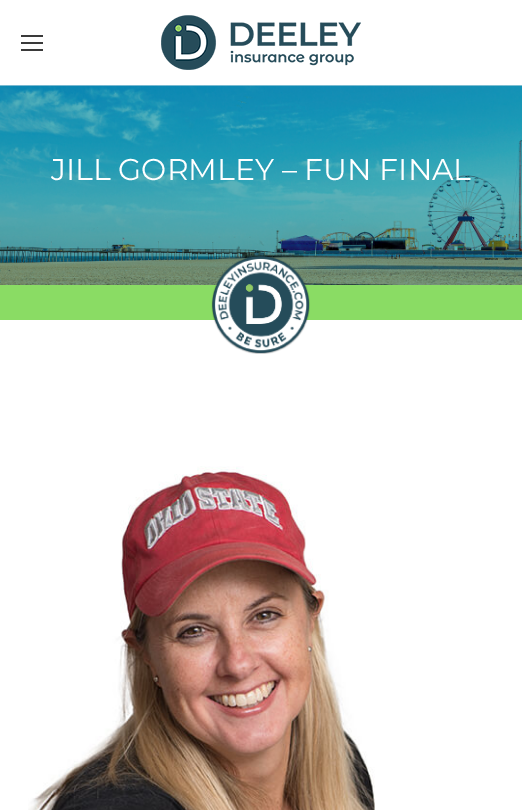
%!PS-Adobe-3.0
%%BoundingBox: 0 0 522 810
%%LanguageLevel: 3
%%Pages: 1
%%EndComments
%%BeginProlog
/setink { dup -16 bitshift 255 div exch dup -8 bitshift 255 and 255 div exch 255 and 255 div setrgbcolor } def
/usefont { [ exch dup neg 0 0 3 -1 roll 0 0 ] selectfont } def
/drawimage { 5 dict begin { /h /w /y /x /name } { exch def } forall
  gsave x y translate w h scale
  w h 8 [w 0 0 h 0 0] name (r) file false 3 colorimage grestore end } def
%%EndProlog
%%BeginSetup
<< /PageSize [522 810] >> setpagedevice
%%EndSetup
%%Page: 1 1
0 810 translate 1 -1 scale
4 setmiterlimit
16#FFFFFF setink
0 0 522 810 rectfill
[
    [21 35 22 2 16#3A3A3A]
    [21 42 22 2 16#3A3A3A]
    [21 49 22 2 16#3A3A3A]
] { aload pop setink rectfill } forall
(img1.raw) 161 15 200 55 drawimage
16#EEEEEE setink
0 85 522 1 rectfill
(img2.raw) 0 85 522 200 drawimage
16#8ADC64 setink
0 285 522 35 rectfill
/Montserrat-Thin 30 usefont
16#FFFFFF setink
51 180 moveto (JILL GORMLEY – FUN FINAL) show
(img3.raw) 211 256 99 98 drawimage
(img4.raw) 28 466 347 344 drawimage
showpage
%%EOF
